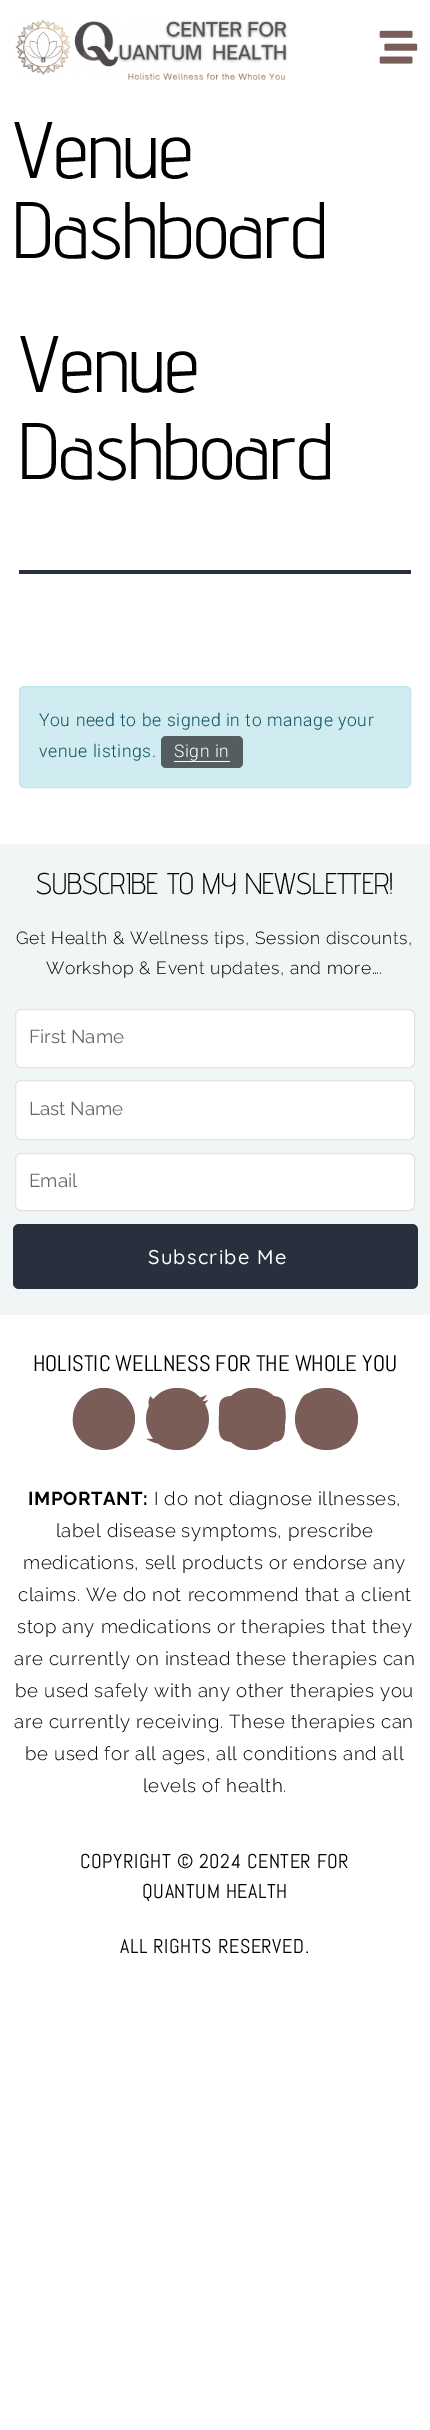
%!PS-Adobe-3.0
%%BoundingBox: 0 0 430 2430
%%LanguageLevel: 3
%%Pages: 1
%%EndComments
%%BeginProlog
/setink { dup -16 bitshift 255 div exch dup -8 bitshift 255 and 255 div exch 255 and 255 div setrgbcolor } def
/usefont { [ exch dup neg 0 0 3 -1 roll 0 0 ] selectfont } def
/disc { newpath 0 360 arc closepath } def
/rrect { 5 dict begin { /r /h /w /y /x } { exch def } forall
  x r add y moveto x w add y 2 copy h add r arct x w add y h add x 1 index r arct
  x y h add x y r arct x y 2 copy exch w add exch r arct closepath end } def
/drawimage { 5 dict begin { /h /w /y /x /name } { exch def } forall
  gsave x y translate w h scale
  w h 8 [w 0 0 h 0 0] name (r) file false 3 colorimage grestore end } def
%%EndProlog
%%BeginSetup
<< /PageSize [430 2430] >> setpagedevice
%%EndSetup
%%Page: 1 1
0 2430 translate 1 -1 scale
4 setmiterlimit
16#FFFFFF setink
0 0 430 2430 rectfill
(img1.raw) 15 19 273 61 drawimage
(img2.raw) 379 30 39 34 drawimage
/AdventPro-Regular 80 usefont
16#010101 setink
13 178 moveto (Venue) show
13 258 moveto (Dashboard) show
16#28303D setink
19 570 392 4 rectfill
16#010101 setink
19 392 moveto (Venue) show
19 479 moveto (Dashboard) show
16#D1ECF1 setink
19.5 686.5 391 101 4.5 rrect gsave fill grestore
16#BEE5EB setink
stroke
/Roboto-Light 17.5 usefont
16#0C5460 setink
39 726 moveto 0.6 0 (You need to be signed in to manage your) ashow
39 757 moveto 0.6 0 (venue listings.) ashow
16#545E60 setink
161 736 82 32 5 rrect fill
16#FFFFFF setink
174 757 moveto 0.6 0 (Sign in) ashow
174 761 56 1 rectfill
16#F0F5F6 setink
0 844 430 471 rectfill
/AdventPro-Light 30 usefont
16#010101 setink
36 894 moveto (SUBSCRIBE TO MY NEWSLETTER!) show
/Raleway-Light 17.5 usefont
16 944 moveto 0.6 0 (Get Health & Wellness tips, Session discounts,) ashow
46 974 moveto 0.6 0 (Workshop & Event updates, and more….) ashow
16#FFFFFF setink
15.5 1009.5 399 58 5.5 rrect gsave fill grestore
16#E2E3E6 setink
stroke
/Raleway-Regular 18.75 usefont
16#676767 setink
29 1043 moveto (First Name) show
16#FFFFFF setink
15.5 1080.5 399 59 5.5 rrect gsave fill grestore
16#E2E3E6 setink
stroke
16#676767 setink
29 1115 moveto (Last Name) show
16#FFFFFF setink
15.5 1153.5 399 57 5.5 rrect gsave fill grestore
16#E2E3E6 setink
stroke
16#676767 setink
29 1187 moveto (Email) show
16#28303D setink
13 1224 405 65 6 rrect fill
/Quicksand-Medium 20 usefont
16#FFFFFF setink
148 1264 moveto 1.25 0 (Subscribe Me) ashow
/Abel-Regular 22.5 usefont
16#010101 setink
33 1371 moveto (HOLISTIC WELLNESS FOR THE WHOLE YOU) show
16#7B5D58 setink
104 1419 31 disc fill
134 1419 moveto 134 1434 123 1447 108 1449 curveto 108 1428 lineto 115 1428 lineto 117 1419 lineto 108 1419 lineto 108 1410 107 1409 117 1409 curveto 117 1401 lineto 110 1400 101 1400 99 1408 curveto 99 1419 lineto 91 1419 lineto 91 1428 lineto 99 1428 lineto 99 1449 lineto 92 1448 85 1444 80 1439 curveto 58 1412 91 1374 120 1394 curveto 129 1400 134 1409 134 1419 curveto closepath fill
146 1388 63 62 31 rrect fill
(img3.raw) 146 1394 63 50 drawimage
221 1388 63 62 31 rrect fill
284 1403 moveto 286 1410 286 1417 285 1424 curveto 285 1444 279 1442 260 1442 curveto 243 1442 lineto 237 1442 223 1444 220 1435 curveto 218 1429 219 1421 219 1414 curveto 219 1403 219 1397 231 1396 curveto 247 1396 lineto 266 1396 lineto 272 1396 282 1395 284 1403 curveto closepath 245 1429 moveto 263 1419 lineto 245 1409 lineto closepath fill
295 1388 63 62 31 rrect fill
(img4.raw) 299 1392 54 54 drawimage
/Raleway-Bold 18.75 usefont
16#010101 setink
28 1505 moveto 0.6 0 (IMPORTANT:) ashow
/Raleway-Light 18.75 usefont
154 1505 moveto 0.6 0 (I do not diagnose illnesses,) ashow
56 1537 moveto 0.6 0 (label disease symptoms, prescribe) ashow
23 1569 moveto 0.6 0 (medications, sell products or endorse any) ashow
18 1601 moveto 0.6 0 (claims. We do not recommend that a client) ashow
17 1633 moveto 0.6 0 (stop any medications or therapies that they) ashow
14 1665 moveto 0.6 0 (are currently on instead these therapies can) ashow
15 1697 moveto 0.6 0 (be used safely with any other therapies you) ashow
14 1728 moveto 0.6 0 (are currently receiving. These therapies can) ashow
25 1760 moveto 0.6 0 (be used for all ages, all conditions and all) ashow
143 1792 moveto 0.6 0 (levels of health.) ashow
/Abel-Regular 20 usefont
80 1868 moveto 0.6 0 (COPYRIGHT © 2024 CENTER FOR) ashow
142 1898 moveto 0.6 0 (QUANTUM HEALTH) ashow
120 1953 moveto 0.6 0 (ALL RIGHTS RESERVED.) ashow
showpage
%%EOF
